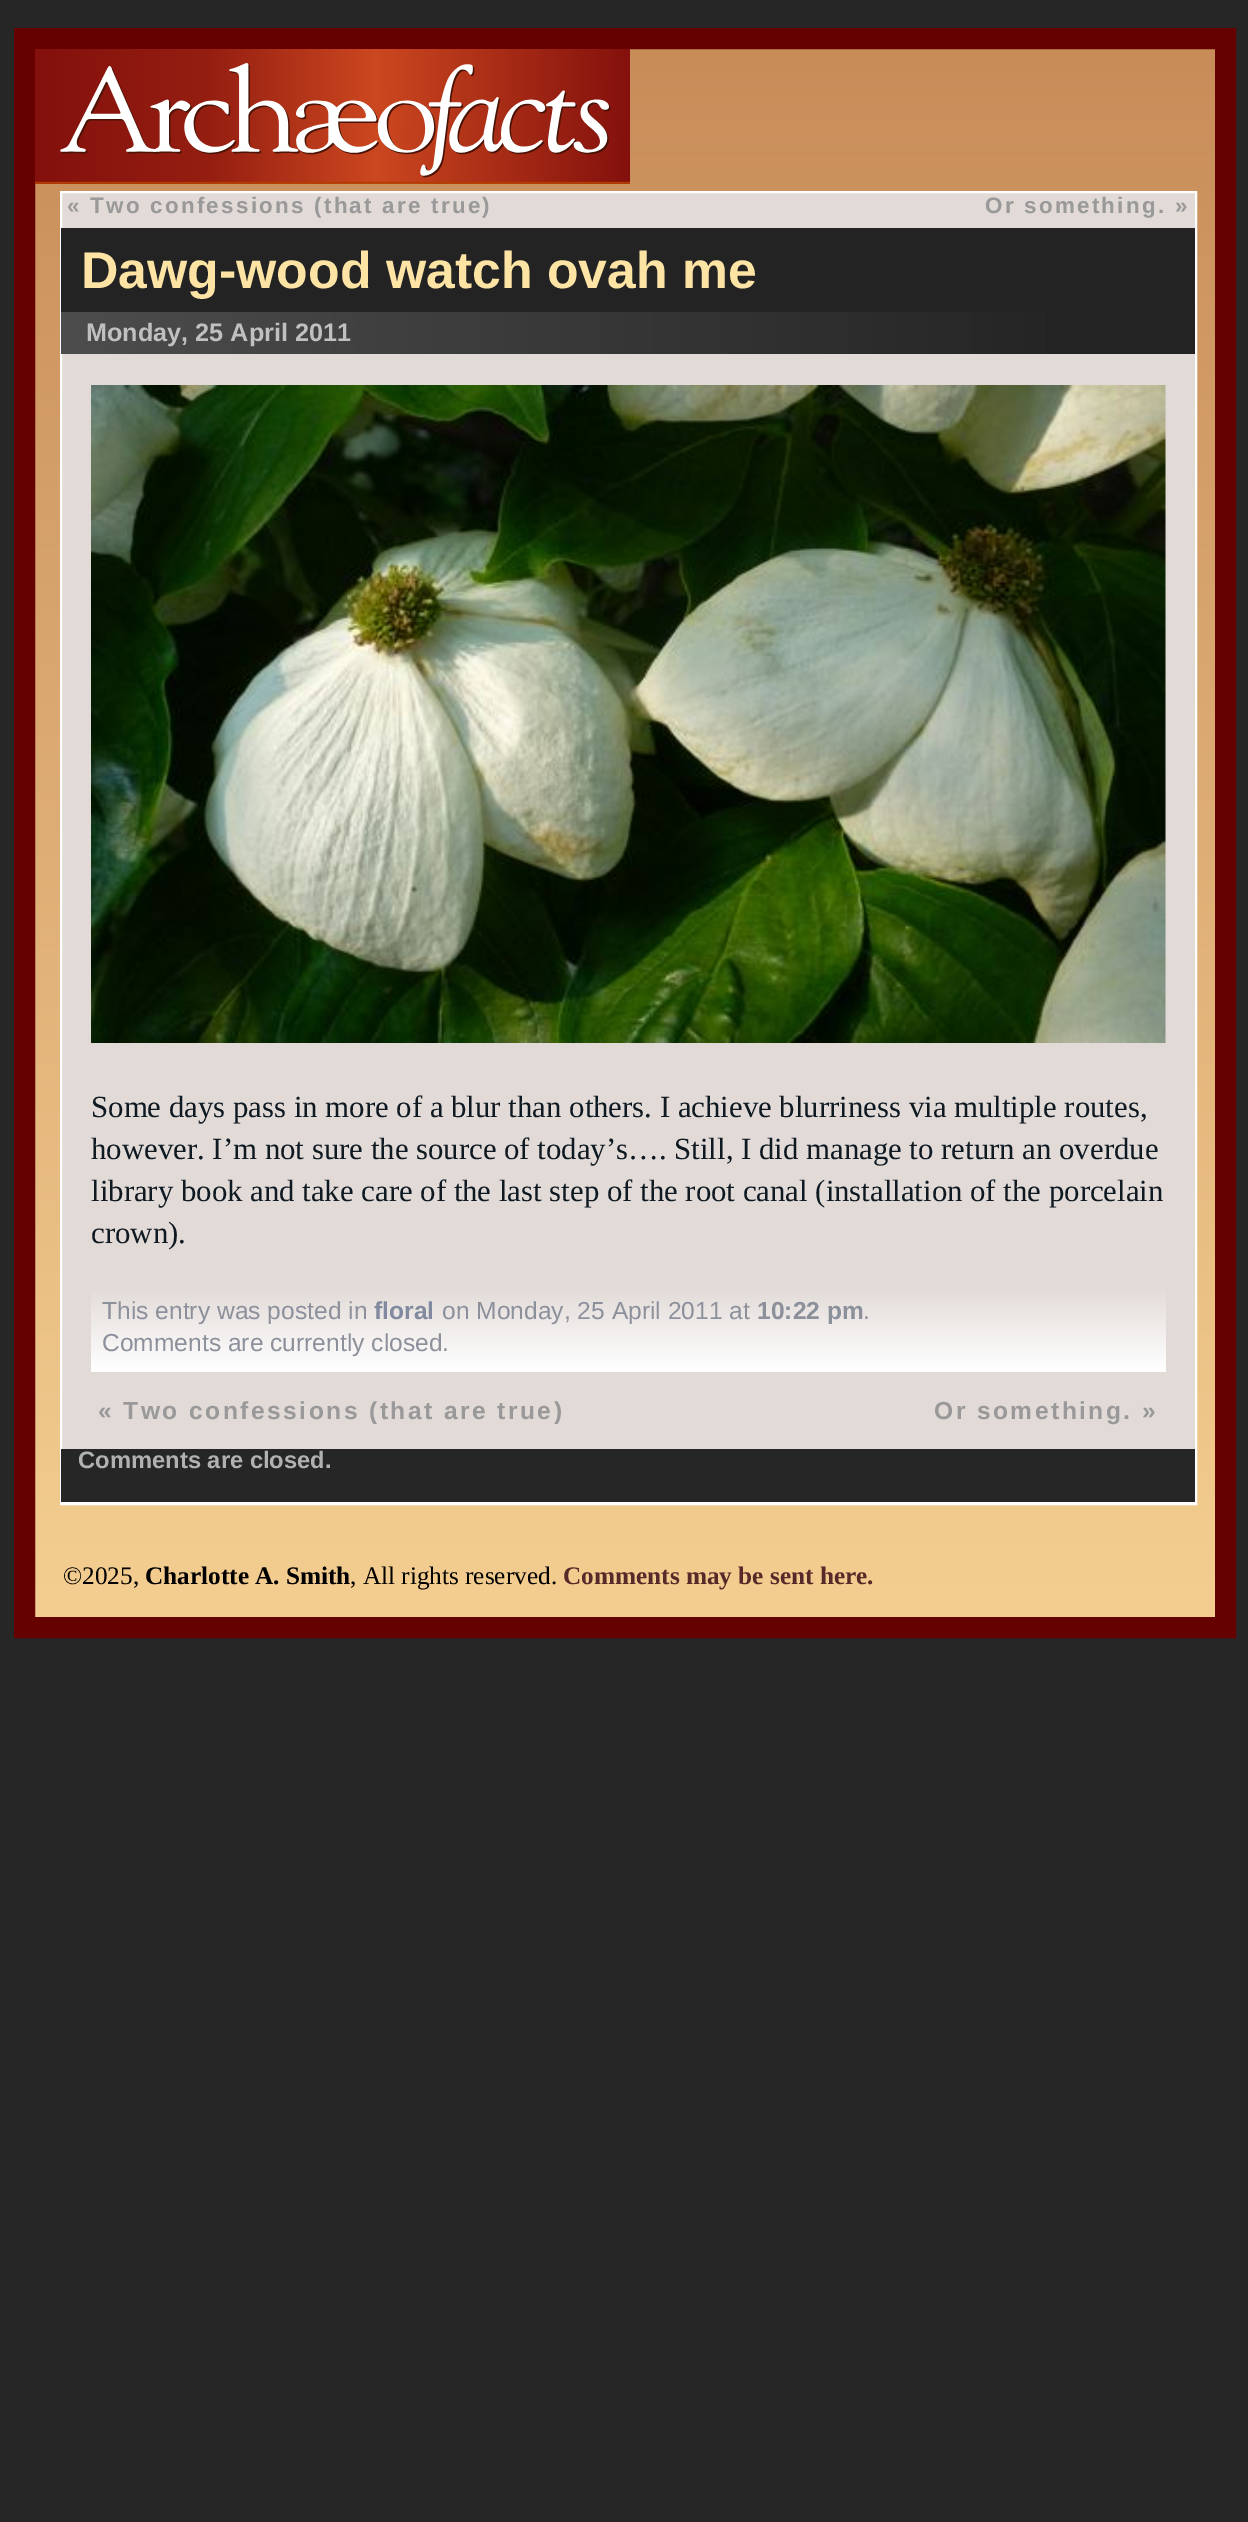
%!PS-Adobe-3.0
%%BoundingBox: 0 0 1248 2522
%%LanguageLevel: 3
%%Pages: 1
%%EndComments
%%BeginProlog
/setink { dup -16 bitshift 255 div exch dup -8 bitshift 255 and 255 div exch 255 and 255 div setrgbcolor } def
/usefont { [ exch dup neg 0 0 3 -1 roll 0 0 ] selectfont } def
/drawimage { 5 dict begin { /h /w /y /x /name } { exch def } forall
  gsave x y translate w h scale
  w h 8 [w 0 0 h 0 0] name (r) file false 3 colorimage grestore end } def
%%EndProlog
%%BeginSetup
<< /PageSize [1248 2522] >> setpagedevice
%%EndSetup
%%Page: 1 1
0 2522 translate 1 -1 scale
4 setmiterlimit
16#262626 setink
0 0 1248 2522 rectfill
gsave 35 49 moveto 1215 49 lineto 1215 1617 lineto 35 1617 lineto closepath clip newpath
<< /ShadingType 2 /ColorSpace /DeviceRGB /Coords [625 49 625 1617] /Extend [true true] /Function << /FunctionType 2 /Domain [0 1] /C0 [0.784 0.549 0.349] /C1 [0.957 0.808 0.569] /N 1 >> >> shfill grestore
16#650200 setink
21 setlinewidth
24.5 38.5 1201 1589 rectstroke
(img1.raw) 35 49 595 135 drawimage
16#E1DAD7 setink
62 193 1133 1256 rectfill
16#FFFFFF setink
2 setlinewidth
61 192 1135 1312 rectstroke
/LiberationSans-Bold 22.4 usefont
16#999999 setink
67 213 moveto 2.25 0 (« Two confessions \(that are true\)) ashow
985 213 moveto 2.25 0 (Or something. ») ashow
16#232323 setink
61 228 1134 126 rectfill
/LiberationSans-Bold 51.75 usefont
16#FDE4A5 setink
81 288 moveto (Dawg-wood watch ovah me) show
gsave 61 312 moveto 1046 312 lineto 1046 354 lineto 61 354 lineto closepath clip newpath
<< /ShadingType 2 /ColorSpace /DeviceRGB /Coords [1108 333 61 333] /Extend [true true] /Function << /FunctionType 2 /Domain [0 1] /C0 [0.137 0.137 0.137] /C1 [0.302 0.302 0.302] /N 1 >> >> shfill grestore
/LiberationSans-Bold 25.25 usefont
16#C0C0C0 setink
86 341 moveto (Monday, 25 April 2011) show
(img2.raw) 91 385 1075 658 drawimage
/LiberationSerif-Regular 30.8 usefont
16#0E1921 setink
[
    [(Some days pass in more of a blur than others. I achieve blurriness via multiple routes,) 91 1117]
    [(however. I’m not sure the source of today’s…. Still, I did manage to return an overdue) 91 1159]
    [(library book and take care of the last step of the root canal \(installation of the porcelain) 91 1201]
    [(crown\).) 91 1243]
] { aload pop moveto show } forall
gsave 91 1290 moveto 1166 1290 lineto 1166 1370 lineto 91 1370 lineto closepath clip newpath
<< /ShadingType 2 /ColorSpace /DeviceRGB /Coords [628 1285 628 1370] /Extend [true true] /Function << /FunctionType 2 /Domain [0 1] /C0 [0.882 0.855 0.843] /C1 [1 1 1] /N 1 >> >> shfill grestore
16#FFFFFF setink
91 1370 1075 2 rectfill
/LiberationSans-Regular 24.6 usefont
16#8B909B setink
102 1319 moveto (This entry was posted in) show
/LiberationSans-Bold 24.6 usefont
16#818A9E setink
374 1319 moveto (floral) show
/LiberationSans-Regular 24.6 usefont
16#8B909B setink
442 1319 moveto (on Monday, 25 April 2011 at) show
/LiberationSans-Bold 24.6 usefont
757 1319 moveto (10:22 pm) show
/LiberationSans-Regular 24.6 usefont
863 1319 moveto (.) show
102 1351 moveto (Comments are currently closed.) show
/LiberationSans-Bold 24.6 usefont
16#999999 setink
98 1419 moveto 2.45 0 (« Two confessions \(that are true\)) ashow
934 1419 moveto 2.45 0 (Or something. ») ashow
16#262626 setink
61 1449 1134 53 rectfill
16#FFFFFF setink
61 1502 1134 1 rectfill
/LiberationSans-Bold 23.75 usefont
16#B1B1B1 setink
78 1468 moveto (Comments are closed.) show
/LiberationSerif-Regular 25.25 usefont
16#000000 setink
63 1584 moveto (©2025,) show
/LiberationSerif-Bold 25.25 usefont
145 1584 moveto (Charlotte A. Smith) show
/LiberationSerif-Regular 25.25 usefont
350 1584 moveto (, All rights reserved.) show
/LiberationSerif-Bold 25.25 usefont
16#562A29 setink
563 1584 moveto (Comments may be sent here.) show
showpage
%%EOF
